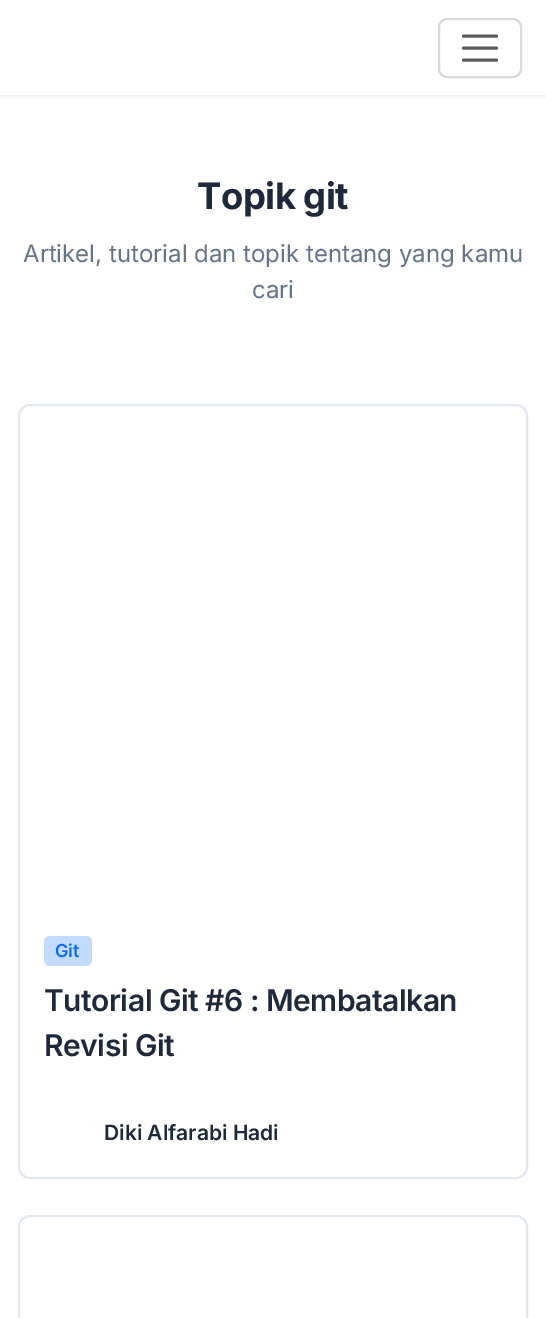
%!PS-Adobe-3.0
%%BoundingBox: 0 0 546 1318
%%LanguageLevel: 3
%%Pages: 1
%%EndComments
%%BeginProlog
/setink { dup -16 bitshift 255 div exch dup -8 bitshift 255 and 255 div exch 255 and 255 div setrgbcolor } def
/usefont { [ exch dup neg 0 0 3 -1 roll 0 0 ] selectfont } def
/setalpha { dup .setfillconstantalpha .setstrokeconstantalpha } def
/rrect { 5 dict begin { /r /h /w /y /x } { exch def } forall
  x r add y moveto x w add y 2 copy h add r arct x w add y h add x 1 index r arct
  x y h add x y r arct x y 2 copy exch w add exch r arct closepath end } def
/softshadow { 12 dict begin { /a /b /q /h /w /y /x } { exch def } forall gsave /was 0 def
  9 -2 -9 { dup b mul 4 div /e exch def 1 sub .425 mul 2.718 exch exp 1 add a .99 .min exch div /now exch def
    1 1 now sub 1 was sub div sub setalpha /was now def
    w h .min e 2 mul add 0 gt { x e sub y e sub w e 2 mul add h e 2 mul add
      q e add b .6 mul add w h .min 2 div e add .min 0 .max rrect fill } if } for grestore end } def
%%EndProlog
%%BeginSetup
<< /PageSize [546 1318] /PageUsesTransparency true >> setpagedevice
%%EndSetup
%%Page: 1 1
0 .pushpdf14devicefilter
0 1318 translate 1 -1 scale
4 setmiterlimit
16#FFFFFF setink
0 0 546 1318 rectfill
16#111827 setink
0 2 546 94 0 2 0.09 softshadow
16#FFFFFF setink
0 0 546 95 rectfill
16#D9D9D9 setink
2 setlinewidth
439 19 82 58 8 rrect stroke
16#595C5F setink
3 setlinewidth
1 setlinecap
463.5 36 moveto 496.5 36 lineto 463.5 48 moveto 496.5 48 lineto 463.5 60 moveto 496.5 60 lineto stroke
/Inter-Bold 36.5 usefont
16#1E293B setink
197 209 moveto -0.5 0 (Topik git) ashow
/Inter-Regular 24 usefont
16#64748B setink
23 262 moveto (Artikel, tutorial dan topik tentang yang kamu) show
252 298 moveto (cari) show
16#E2E8F0 setink
2 setlinewidth
0 setlinecap
19 405 508 773 11 rrect stroke
16#C3DBFF setink
44 936 48 30 6 rrect fill
/Inter-SemiBold 18 usefont
16#0D6EFD setink
55 957 moveto (Git) show
/Inter-SemiBold 30 usefont
16#1E293B setink
44 1011 moveto -0.5 0 (Tutorial Git #6 : Membatalkan) ashow
44 1056 moveto -0.5 0 (Revisi Git) ashow
/Inter-SemiBold 21 usefont
104 1140 moveto (Diki Alfarabi Hadi) show
16#E2E8F0 setink
19 1216 508 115 11 rrect stroke
.poppdf14devicefilter showpage
%%EOF
